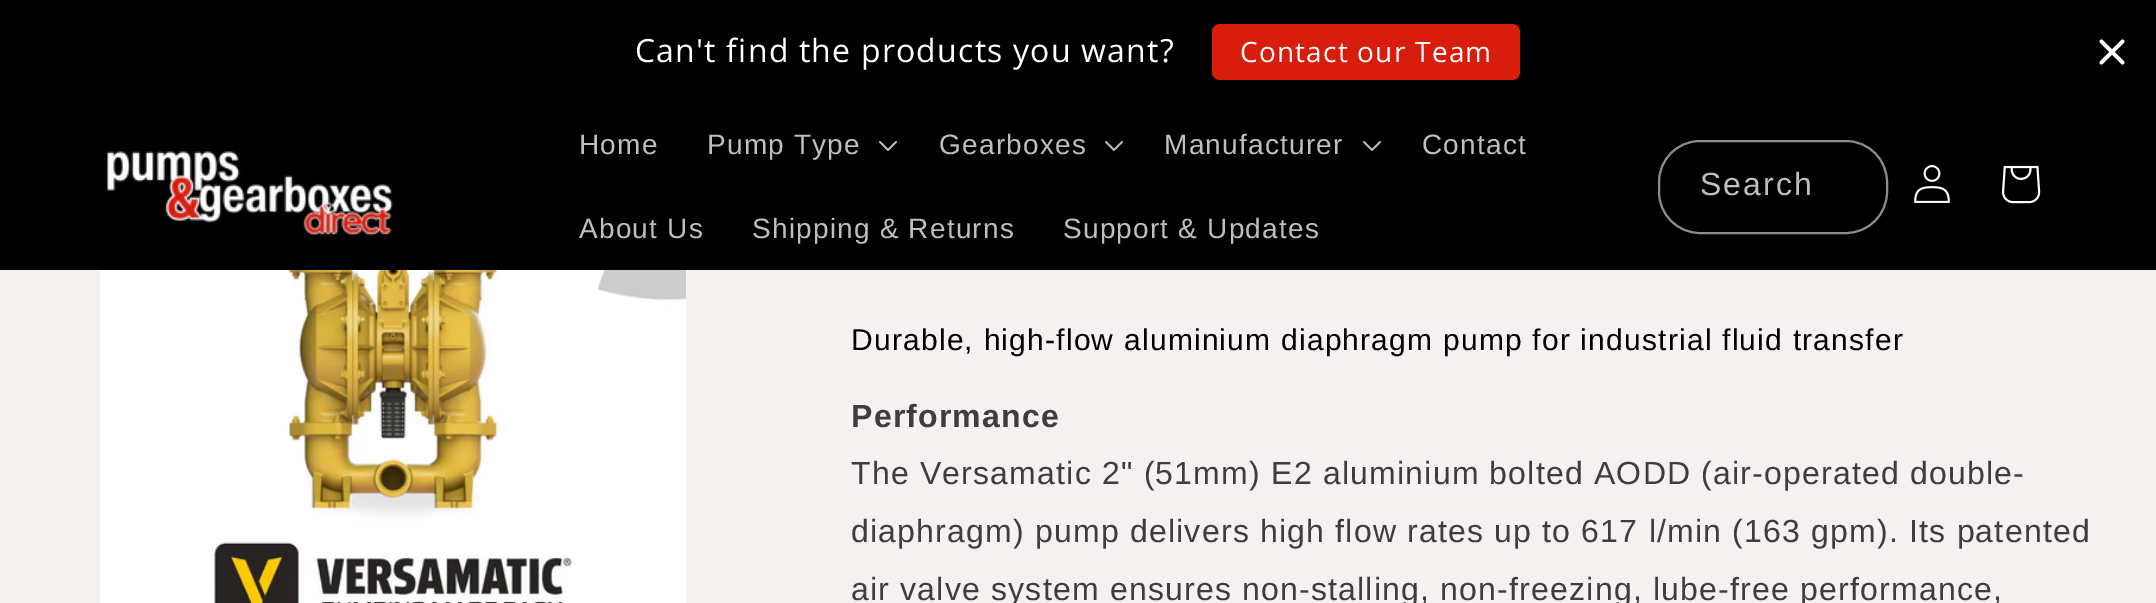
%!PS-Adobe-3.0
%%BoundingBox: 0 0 2156 603
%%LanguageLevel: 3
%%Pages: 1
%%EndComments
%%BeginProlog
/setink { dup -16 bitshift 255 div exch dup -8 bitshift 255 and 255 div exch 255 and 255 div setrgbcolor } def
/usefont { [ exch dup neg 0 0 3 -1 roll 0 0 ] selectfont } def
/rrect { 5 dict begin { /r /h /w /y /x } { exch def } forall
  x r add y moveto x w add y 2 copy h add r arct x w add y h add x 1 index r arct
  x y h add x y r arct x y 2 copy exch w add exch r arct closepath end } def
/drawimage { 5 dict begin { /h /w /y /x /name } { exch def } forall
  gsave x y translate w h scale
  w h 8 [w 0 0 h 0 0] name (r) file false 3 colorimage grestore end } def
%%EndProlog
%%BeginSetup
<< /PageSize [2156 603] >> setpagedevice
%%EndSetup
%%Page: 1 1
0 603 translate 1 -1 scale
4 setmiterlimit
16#F6F1F1 setink
0 0 2156 603 rectfill
16#000000 setink
0 0 2156 270 rectfill
/OpenSans-Regular 32 usefont
16#FFFFFF setink
635 62 moveto 1.2 0 (Can't find the products you want?) ashow
16#D81D0D setink
1212 24 308 56 8 rrect fill
/OpenSans-Regular 28 usefont
16#FFFFFF setink
1240 62 moveto 1.2 0 (Contact our Team) ashow
(img1.raw) 2099 39 26 26 drawimage
(img2.raw) 106 151 287 95 drawimage
/LiberationSans-Regular 28 usefont
16#BFBFBF setink
579 154 moveto 1.2 0 (Home) ashow
707 154 moveto 1.2 0 (Pump Type) ashow
(img3.raw) 879 141 18 10 drawimage
939 154 moveto 1.2 0 (Gearboxes) ashow
(img3.raw) 1105 141 18 10 drawimage
1164 154 moveto 1.2 0 (Manufacturer) ashow
(img3.raw) 1363 141 18 10 drawimage
1422 154 moveto 1.2 0 (Contact) ashow
579 238 moveto 1.2 0 (About Us) ashow
752 238 moveto 1.2 0 (Shipping & Returns) ashow
1063 238 moveto 1.2 0 (Support & Updates) ashow
16#8C8C8C setink
2 setlinewidth
1659 141 228 92 41 rrect stroke
/LiberationSans-Regular 32 usefont
16#BFBFBF setink
1700 195 moveto 2 0 (Search) ashow
(img4.raw) 1914 165 36 38 drawimage
(img5.raw) 2002 165 39 39 drawimage
(img6.raw) 100 270 586 333 drawimage
/LiberationSans-Regular 30 usefont
16#000000 setink
851 350 moveto 1.2 0 (Durable, high-flow aluminium diaphragm pump for industrial fluid transfer) ashow
/LiberationSans-Bold 32 usefont
16#3E3C3C setink
851 427 moveto 1.2 0 (Performance) ashow
/LiberationSans-Regular 32 usefont
851 484 moveto 1.2 0 (The Versamatic 2" \(51mm\) E2 aluminium bolted AODD \(air-operated double-) ashow
851 542 moveto 1.2 0 (diaphragm\) pump delivers high flow rates up to 617 l/min \(163 gpm\). Its patented) ashow
851 600 moveto 1.2 0 (air valve system ensures non-stalling, non-freezing, lube-free performance,) ashow
showpage
%%EOF
